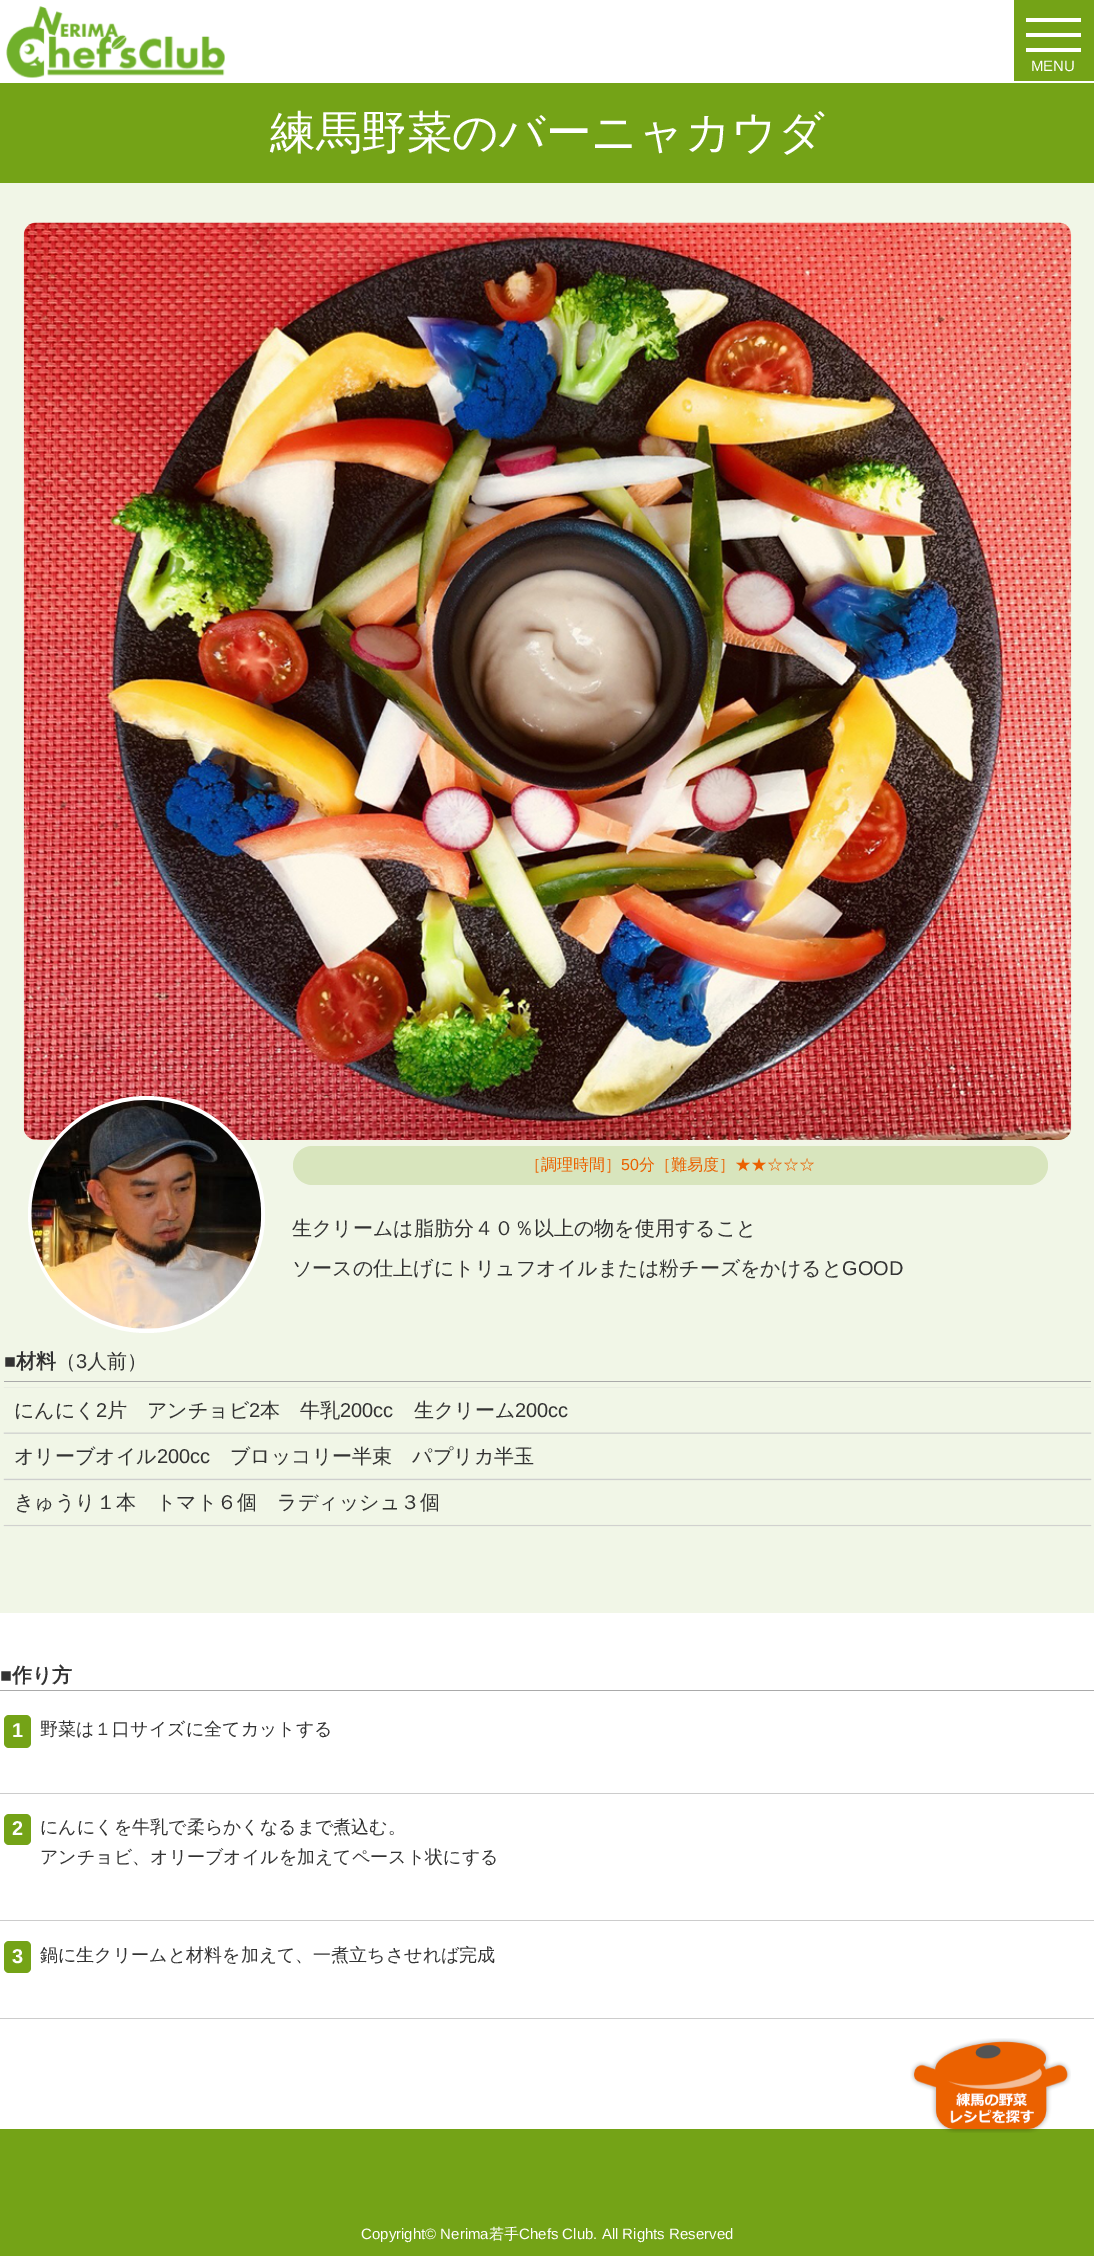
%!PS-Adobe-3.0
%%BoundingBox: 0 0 1094 2256
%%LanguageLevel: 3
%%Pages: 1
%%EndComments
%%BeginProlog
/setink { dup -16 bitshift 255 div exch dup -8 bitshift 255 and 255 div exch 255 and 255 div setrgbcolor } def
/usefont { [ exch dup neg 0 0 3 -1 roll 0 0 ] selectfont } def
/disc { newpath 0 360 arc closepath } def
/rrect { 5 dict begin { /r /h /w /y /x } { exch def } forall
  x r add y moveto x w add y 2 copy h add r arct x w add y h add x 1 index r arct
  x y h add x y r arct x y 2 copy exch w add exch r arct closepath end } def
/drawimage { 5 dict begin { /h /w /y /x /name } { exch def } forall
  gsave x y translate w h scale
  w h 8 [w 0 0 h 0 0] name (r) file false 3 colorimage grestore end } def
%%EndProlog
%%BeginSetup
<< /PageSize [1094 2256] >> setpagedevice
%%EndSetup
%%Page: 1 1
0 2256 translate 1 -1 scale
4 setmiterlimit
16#FFFFFF setink
0 0 1094 2256 rectfill
(img1.raw) 6 6 219 72 drawimage
[
    [1014 0 80 81 16#74A317]
    [1026 18 55 4 16#FFFFFF]
    [1026 33 55 4 16#FFFFFF]
    [1026 48 55 4 16#FFFFFF]
] { aload pop setink rectfill } forall
/LiberationSans-Regular 15 usefont
1031 71 moveto (MENU) show
16#74A317 setink
0 83 1094 100 rectfill
/WenQuanYiZenHei-Medium 45.6 usefont
16#FFFFFF setink
270 148 moveto (練馬野菜のバーニャカウダ) show
16#F1F6E7 setink
0 183 1094 1430 rectfill
(img2.raw) 23 222 1049 918 drawimage
16#FFFFFF setink
146.5 1214.5 118.5 disc fill
(img3.raw) 31 1100 231 229 drawimage
16#D8E5BD setink
293 1146 755 39 19.5 rrect fill
/WenQuanYiZenHei-Medium 16 usefont
16#EB6100 setink
525 1170 moveto (［調理時間］) show
/LiberationSans-Regular 16 usefont
621 1170 moveto (50) show
/WenQuanYiZenHei-Medium 16 usefont
639 1170 moveto (分［難易度］★★☆☆☆) show
/WenQuanYiZenHei-Medium 20 usefont
16#333333 setink
292 1235 moveto (生クリームは脂肪分４０％以上の物を使用すること) show
292 1275 moveto (ソースの仕上げにトリュフオイルまたは粉チーズをかけると) show
/LiberationSans-Regular 20 usefont
842 1275 moveto (GOOD) show
16#AAAAAA setink
4 1381 1087 1 rectfill
/LiberationSans-Bold 20 usefont
16#333333 setink
4 1368 moveto (■) show
/WenQuanYiZenHei-Bold 20 usefont
16 1368 moveto (材料) show
/WenQuanYiZenHei-Medium 20 usefont
56 1368 moveto (（) show
/LiberationSans-Regular 20 usefont
76 1368 moveto (3) show
/WenQuanYiZenHei-Medium 20 usefont
87 1368 moveto (人前）) show
(img4.raw) 3 1387 1089 140 drawimage
14 1417 moveto (にんにく) show
/LiberationSans-Regular 20 usefont
96 1417 moveto (2) show
/WenQuanYiZenHei-Medium 20 usefont
107 1417 moveto (片　アンチョビ) show
/LiberationSans-Regular 20 usefont
249 1417 moveto (2) show
/WenQuanYiZenHei-Medium 20 usefont
260 1417 moveto (本　牛乳) show
/LiberationSans-Regular 20 usefont
340 1417 moveto (200cc) show
/WenQuanYiZenHei-Medium 20 usefont
414 1417 moveto (生クリーム) show
/LiberationSans-Regular 20 usefont
515 1417 moveto (200cc) show
/WenQuanYiZenHei-Medium 20 usefont
14 1463 moveto (オリーブオイル) show
/LiberationSans-Regular 20 usefont
157 1463 moveto (200cc) show
/WenQuanYiZenHei-Medium 20 usefont
230 1463 moveto (ブロッコリー半束　パプリカ半玉) show
14 1509 moveto (きゅうり１本　トマト６個　ラディッシュ３個) show
16#AAAAAA setink
0 1690 1094 1 rectfill
/LiberationSans-Bold 20 usefont
16#333333 setink
0 1682 moveto (■) show
/WenQuanYiZenHei-Bold 20 usefont
12 1682 moveto (作り方) show
16#CCCCCC setink
0 1793 1094 1 rectfill
16#74A317 setink
4 1715 27 33 5 rrect fill
/LiberationSans-Bold 20 usefont
16#FFFFFF setink
12 1737 moveto (1) show
/WenQuanYiZenHei-Medium 18 usefont
16#333333 setink
40 1735 moveto (野菜は１口サイズに全てカットする) show
16#CCCCCC setink
0 1920 1094 1 rectfill
16#74A317 setink
4 1814 27 31 5 rrect fill
/LiberationSans-Bold 20 usefont
16#FFFFFF setink
12 1835 moveto (2) show
/WenQuanYiZenHei-Medium 18 usefont
16#333333 setink
40 1833 moveto (にんにくを牛乳で柔らかくなるまで煮込む。) show
40 1863 moveto (アンチョビ、オリーブオイルを加えてペースト状にする) show
16#CCCCCC setink
0 2018 1094 1 rectfill
16#74A317 setink
4 1941 27 32 5 rrect fill
/LiberationSans-Bold 20 usefont
16#FFFFFF setink
12 1963 moveto (3) show
/WenQuanYiZenHei-Medium 18 usefont
16#333333 setink
40 1961 moveto (鍋に生クリームと材料を加えて、一煮立ちさせれば完成) show
16#74A317 setink
0 2129 1094 127 rectfill
/LiberationSans-Regular 15 usefont
16#FFFFFF setink
361 2239 moveto (Copyright© Nerima) show
/WenQuanYiZenHei-Medium 15 usefont
489 2239 moveto (若手) show
/LiberationSans-Regular 15 usefont
519 2239 moveto (Chefs Club. All Rights Reserved) show
(img5.raw) 910 2038 161 95 drawimage
showpage
%%EOF
